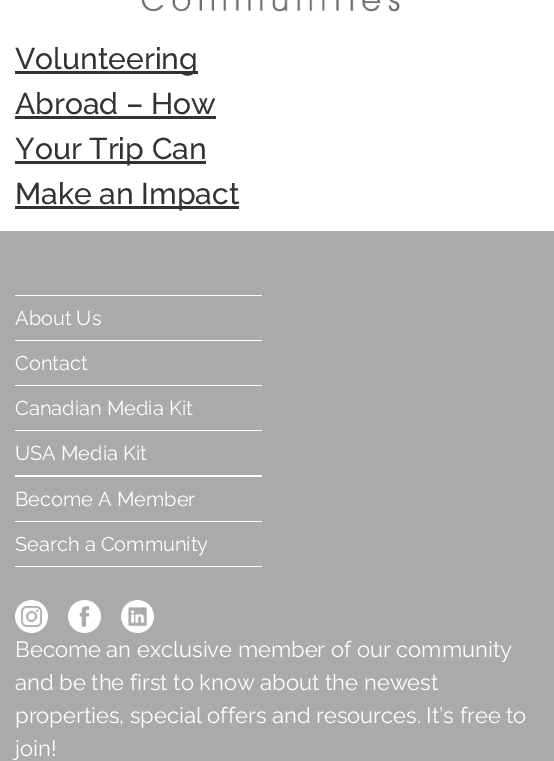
%!PS-Adobe-3.0
%%BoundingBox: 0 0 554 761
%%LanguageLevel: 3
%%Pages: 1
%%EndComments
%%BeginProlog
/setink { dup -16 bitshift 255 div exch dup -8 bitshift 255 and 255 div exch 255 and 255 div setrgbcolor } def
/usefont { [ exch dup neg 0 0 3 -1 roll 0 0 ] selectfont } def
/drawimage { 5 dict begin { /h /w /y /x /name } { exch def } forall
  gsave x y translate w h scale
  w h 8 [w 0 0 h 0 0] name (r) file false 3 colorimage grestore end } def
%%EndProlog
%%BeginSetup
<< /PageSize [554 761] >> setpagedevice
%%EndSetup
%%Page: 1 1
0 761 translate 1 -1 scale
4 setmiterlimit
16#FFFFFF setink
0 0 554 761 rectfill
(img1.raw) 142 0 258 12 drawimage
16#333333 setink
15 71 183 3 rectfill
/Raleway-Medium 30 usefont
15 69 moveto (Volunteering) show
15 114 moveto (Abroad – How) show
15 116 201 3 rectfill
15 161 191 3 rectfill
15 159 moveto (Your Trip Can) show
15 206 224 3 rectfill
15 204 moveto (Make an Impact) show
[
    [0 231 554 530 16#AAAAAA]
    [15 295 247 1 16#FFFFFF]
    [15 340 247 1 16#FFFFFF]
] { aload pop setink rectfill } forall
/Raleway-Regular 20 usefont
15 325 moveto (About Us) show
15 385 247 1 rectfill
15 370 moveto (Contact) show
15 430 247 1 rectfill
15 415 moveto (Canadian Media Kit) show
15 475 247 2 rectfill
15 460 moveto (USA Media Kit) show
15 521 247 1 rectfill
15 506 moveto (Become A Member) show
15 566 247 1 rectfill
15 551 moveto (Search a Community) show
(img2.raw) 15 600 33 33 drawimage
(img3.raw) 68 600 33 33 drawimage
(img4.raw) 121 600 33 33 drawimage
/Raleway-Regular 22 usefont
[
    [(Become an exclusive member of our community) 15 657]
    [(and be the first to know about the newest) 15 690]
    [(properties, special offers and resources. It’s free to) 15 723]
    [(join!) 15 756]
] { aload pop moveto show } forall
showpage
%%EOF
